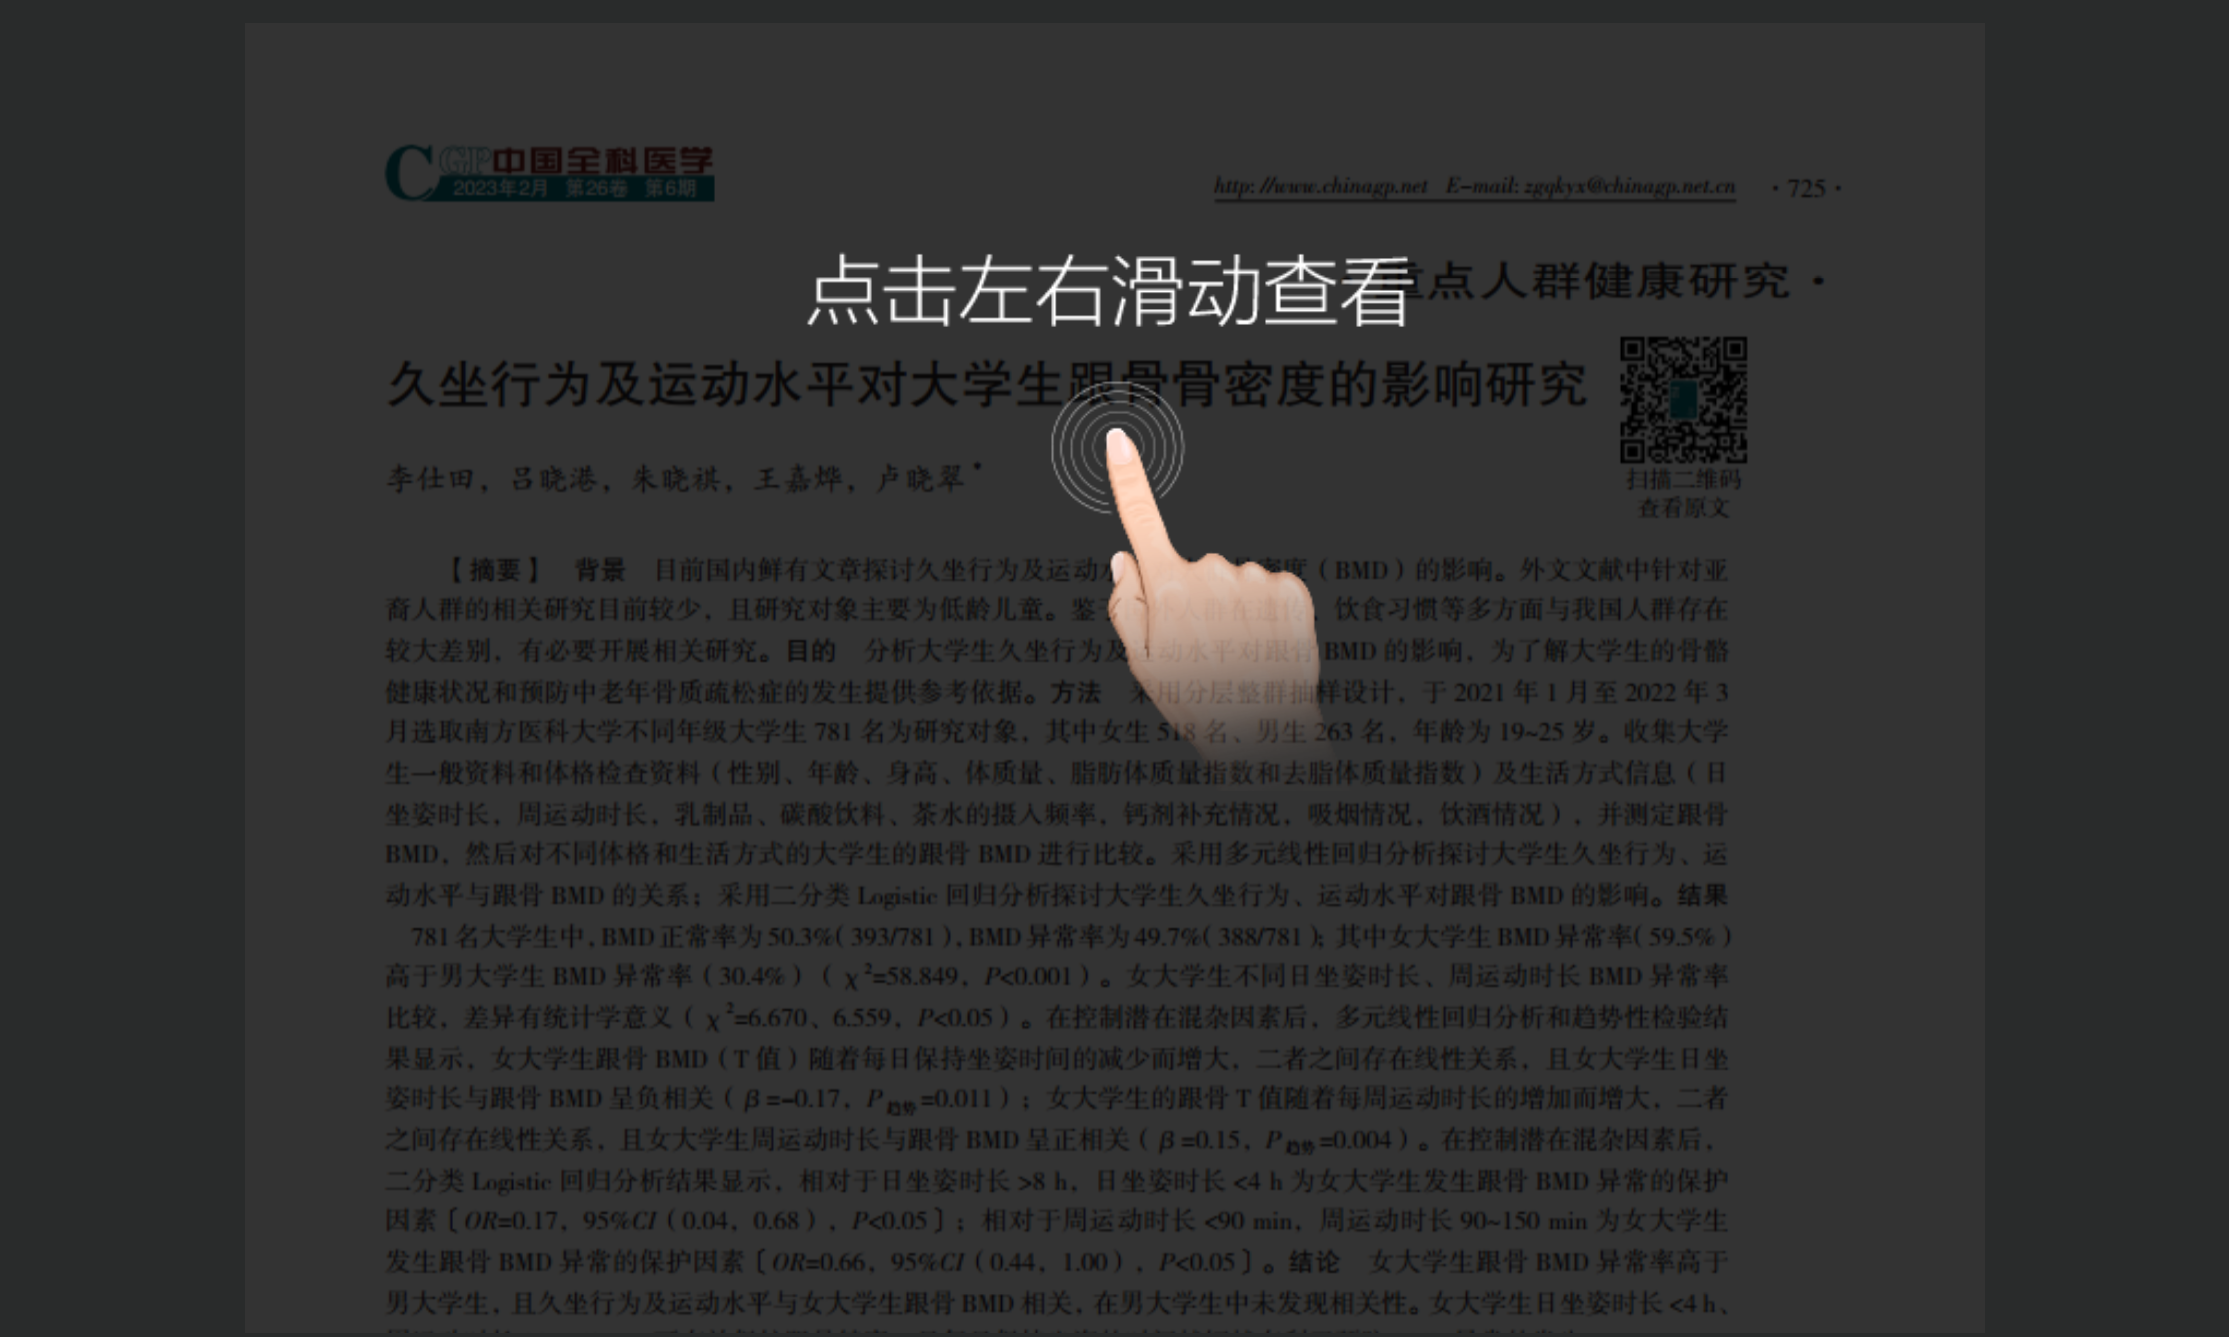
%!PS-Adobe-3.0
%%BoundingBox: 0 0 2229 1337
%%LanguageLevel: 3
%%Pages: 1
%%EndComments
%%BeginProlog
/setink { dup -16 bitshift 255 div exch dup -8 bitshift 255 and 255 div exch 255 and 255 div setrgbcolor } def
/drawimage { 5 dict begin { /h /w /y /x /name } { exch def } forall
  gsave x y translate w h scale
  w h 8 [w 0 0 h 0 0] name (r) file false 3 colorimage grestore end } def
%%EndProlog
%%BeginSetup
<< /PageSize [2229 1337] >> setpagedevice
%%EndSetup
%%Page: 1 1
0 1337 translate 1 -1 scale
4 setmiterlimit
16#292B2B setink
0 0 2229 1337 rectfill
(img1.raw) 245 23 1740 1310 drawimage
(img2.raw) 806 251 609 540 drawimage
showpage
%%EOF
